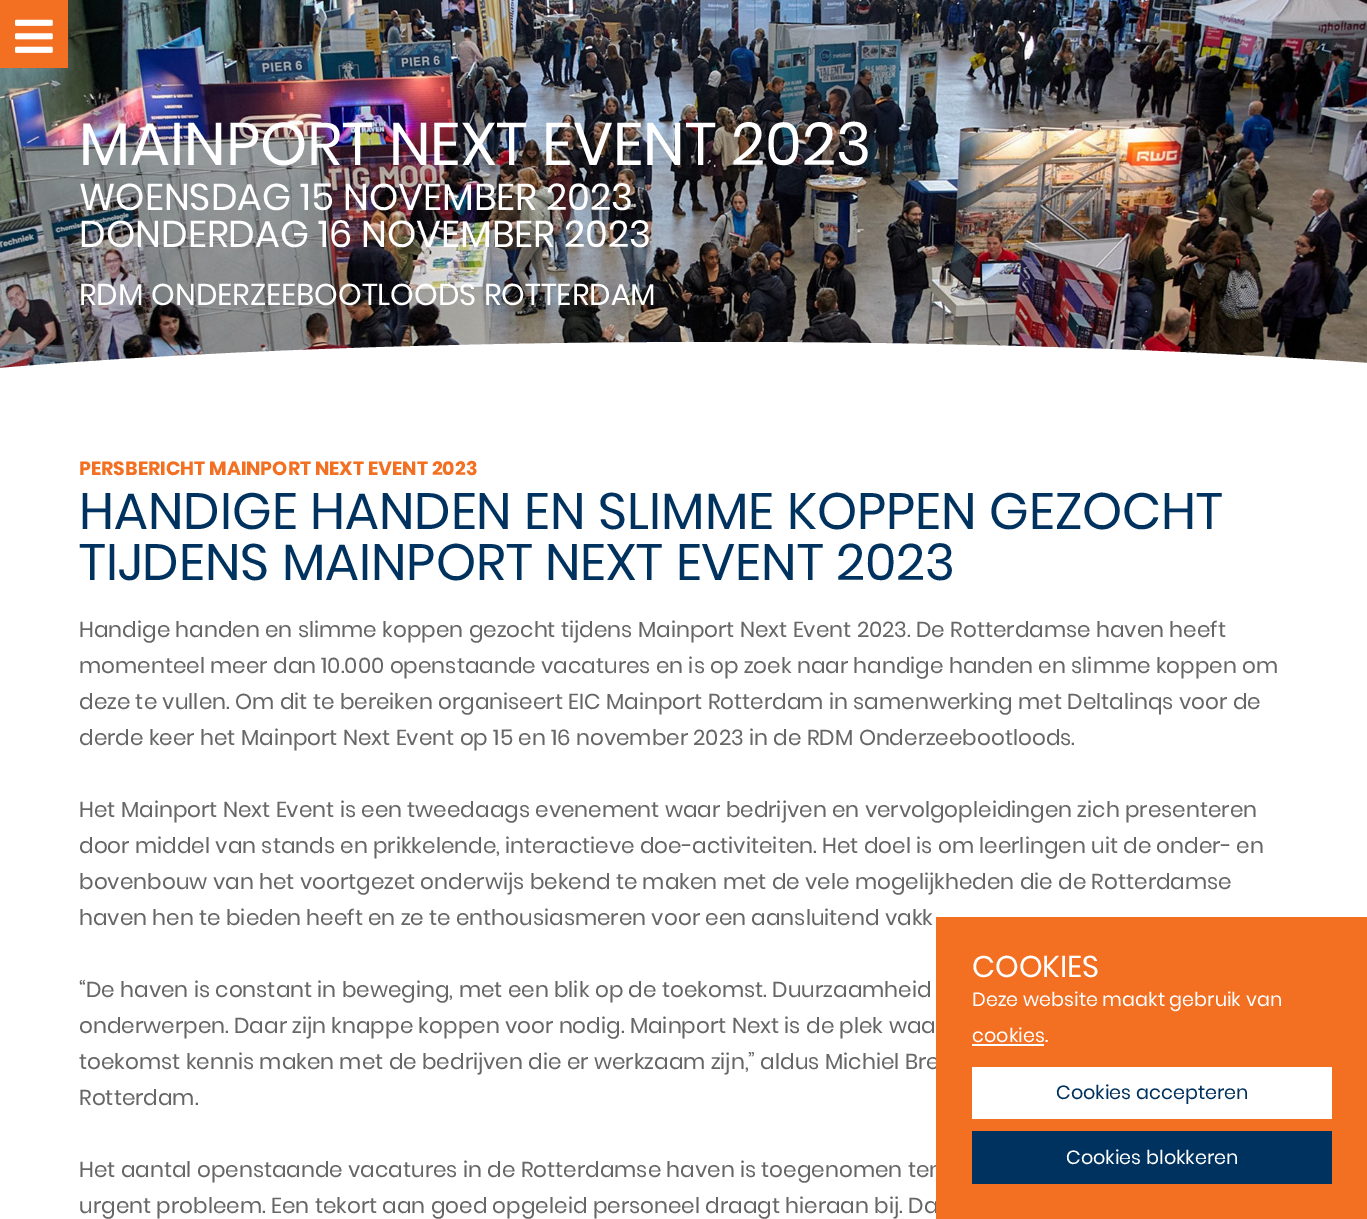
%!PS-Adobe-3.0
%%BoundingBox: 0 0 1367 1219
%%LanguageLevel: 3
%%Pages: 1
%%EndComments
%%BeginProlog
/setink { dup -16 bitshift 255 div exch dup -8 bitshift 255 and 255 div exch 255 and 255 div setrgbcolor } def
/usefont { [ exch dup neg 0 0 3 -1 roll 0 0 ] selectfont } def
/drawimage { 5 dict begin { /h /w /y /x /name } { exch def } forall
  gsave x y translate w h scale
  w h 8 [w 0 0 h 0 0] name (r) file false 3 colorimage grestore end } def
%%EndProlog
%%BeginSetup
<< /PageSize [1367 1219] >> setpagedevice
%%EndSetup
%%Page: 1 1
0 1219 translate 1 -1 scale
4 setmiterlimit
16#FFFFFF setink
0 0 1367 1219 rectfill
(img2.raw) 0 0 1367 368 drawimage
16#F37022 setink
0 0 68 68 rectfill
(img1.raw) 15 19 38 34 drawimage
/Poppins-Regular 60 usefont
16#FFFFFF setink
79 165 moveto (MAINPORT NEXT EVENT 2023) show
/Poppins-Regular 37.25 usefont
79 210 moveto (WOENSDAG 15 NOVEMBER 2023) show
79 247 moveto (DONDERDAG 16 NOVEMBER 2023) show
/Poppins-Regular 30 usefont
79 305 moveto (RDM ONDERZEEBOOTLOODS ROTTERDAM) show
0 391 moveto 0 368 lineto 187 352 440 342 719 342 curveto 1033 342 1314 355 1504 375 curveto 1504 391 lineto closepath fill
/Poppins-Bold 19.2 usefont
16#F37022 setink
79 475 moveto (PERSBERICHT MAINPORT NEXT EVENT 2023) show
/Poppins-Regular 51 usefont
16#00325F setink
79 529 moveto (HANDIGE HANDEN EN SLIMME KOPPEN GEZOCHT) show
79 580 moveto (TIJDENS MAINPORT NEXT EVENT 2023) show
/Poppins-Regular 21.6 usefont
16#666666 setink
[
    [(Handige handen en slimme koppen gezocht tijdens Mainport Next Event 2023. De Rotterdamse haven heeft) 79 637]
    [(momenteel meer dan 10.000 openstaande vacatures en is op zoek naar handige handen en slimme koppen om) 79 673]
    [(deze te vullen. Om dit te bereiken organiseert EIC Mainport Rotterdam in samenwerking met Deltalinqs voor de) 79 709]
    [(derde keer het Mainport Next Event op 15 en 16 november 2023 in de RDM Onderzeebootloods.) 79 745]
    [(Het Mainport Next Event is een tweedaags evenement waar bedrijven en vervolgopleidingen zich presenteren) 79 817]
    [(door middel van stands en prikkelende, interactieve doe-activiteiten. Het doel is om leerlingen uit de onder- en) 79 853]
    [(bovenbouw van het voortgezet onderwijs bekend te maken met de vele mogelijkheden die de Rotterdamse) 79 889]
    [(haven hen te bieden heeft en ze te enthousiasmeren voor een aansluitend vakk) 79 925]
    [(“De haven is constant in beweging, met een blik op de toekomst. Duurzaamheid) 79 997]
    [(onderwerpen. Daar zijn knappe koppen voor nodig. Mainport Next is de plek waa) 79 1033]
    [(toekomst kennis maken met de bedrijven die er werkzaam zijn,” aldus Michiel Bre) 79 1069]
    [(Rotterdam.) 79 1105]
    [(Het aantal openstaande vacatures in de Rotterdamse haven is toegenomen ten) 79 1177]
    [(urgent probleem. Een tekort aan goed opgeleid personeel draagt hieraan bij. Da) 79 1213]
] { aload pop moveto show } forall
16#F37022 setink
936 917 431 302 rectfill
/Poppins-Regular 30 usefont
16#FFFFFF setink
972 977 moveto (COOKIES) show
/Poppins-Regular 19.2 usefont
972 1006 moveto (Deze website maakt gebruik van) show
972 1042 moveto (cookies.) show
972 1044 72 2 rectfill
972 1067 360 52 rectfill
16#00325F setink
1056 1099 moveto (Cookies accepteren) show
972 1131 360 53 rectfill
16#FFFFFF setink
1066 1164 moveto (Cookies blokkeren) show
showpage
%%EOF
